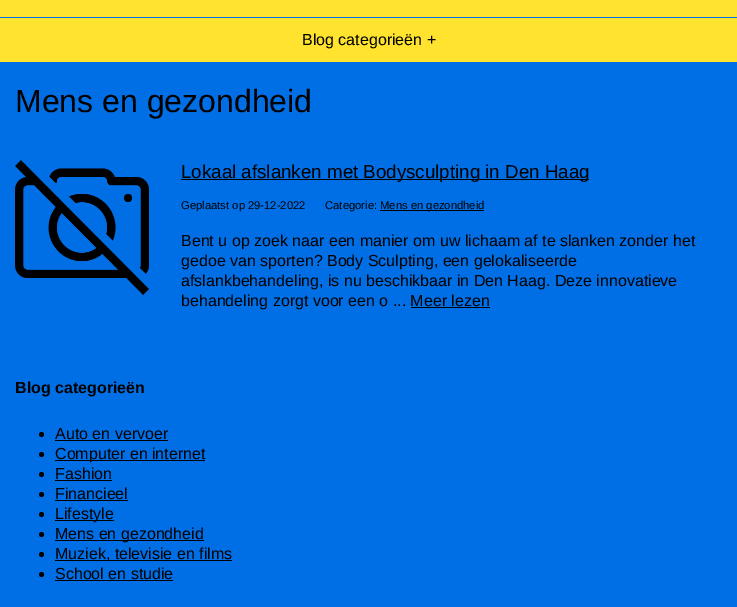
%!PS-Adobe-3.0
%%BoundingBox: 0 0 737 607
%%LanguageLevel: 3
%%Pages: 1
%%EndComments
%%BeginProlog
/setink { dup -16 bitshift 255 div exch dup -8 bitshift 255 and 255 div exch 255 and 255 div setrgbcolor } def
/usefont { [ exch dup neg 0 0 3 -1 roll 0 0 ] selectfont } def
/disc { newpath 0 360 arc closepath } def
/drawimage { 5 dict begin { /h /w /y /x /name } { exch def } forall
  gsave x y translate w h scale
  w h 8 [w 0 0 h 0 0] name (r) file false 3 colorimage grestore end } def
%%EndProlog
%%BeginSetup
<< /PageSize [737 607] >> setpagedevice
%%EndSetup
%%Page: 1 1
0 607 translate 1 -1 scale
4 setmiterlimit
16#006FE6 setink
0 0 737 607 rectfill
16#FFE32E setink
0 0 737 17 rectfill
0 18 737 44 rectfill
/LiberationSans-Regular 16 usefont
16#000000 setink
302 45 moveto (Blog categorieën +) show
/LiberationSans-Regular 32 usefont
15 112 moveto (Mens en gezondheid) show
(img1.raw) 15 160 134 135 drawimage
181 179 408 1 rectfill
/LiberationSans-Regular 18.75 usefont
181 178 moveto (Lokaal afslanken met Bodysculpting in Den Haag) show
/LiberationSans-Regular 11.25 usefont
181 209 moveto (Geplaatst op 29-12-2022) show
325 209 moveto (Categorie:) show
380 210 104 1 rectfill
380 209 moveto (Mens en gezondheid) show
/LiberationSans-Regular 16 usefont
[
    [(Bent u op zoek naar een manier om uw lichaam af te slanken zonder het) 181 246]
    [(gedoe van sporten? Body Sculpting, een gelokaliseerde) 181 266]
    [(afslankbehandeling, is nu beschikbaar in Den Haag. Deze innovatieve) 181 286]
    [(behandeling zorgt voor een o ... Meer lezen) 181 306]
] { aload pop moveto show } forall
411 307 79 1 rectfill
/LiberationSans-Bold 16 usefont
15 393 moveto (Blog categorieën) show
41.5 434.5 2.5 disc fill
/LiberationSans-Regular 16 usefont
55 439 moveto (Auto en vervoer) show
55 440 113 1 rectfill
41.5 454.5 2.5 disc fill
55 460 150 1 rectfill
55 459 moveto (Computer en internet) show
41.5 474.5 2.5 disc fill
55 479 moveto (Fashion) show
55 480 57 1 rectfill
41.5 494.5 2.5 disc fill
55 499 moveto (Financieel) show
55 500 73 1 rectfill
41.5 514.5 2.5 disc fill
55 520 59 1 rectfill
55 519 moveto (Lifestyle) show
41.5 534.5 2.5 disc fill
55 540 149 1 rectfill
55 539 moveto (Mens en gezondheid) show
41.5 554.5 2.5 disc fill
55 560 177 1 rectfill
55 559 moveto (Muziek, televisie en films) show
41.5 574.5 2.5 disc fill
55 579 moveto (School en studie) show
55 580 118 1 rectfill
showpage
%%EOF
